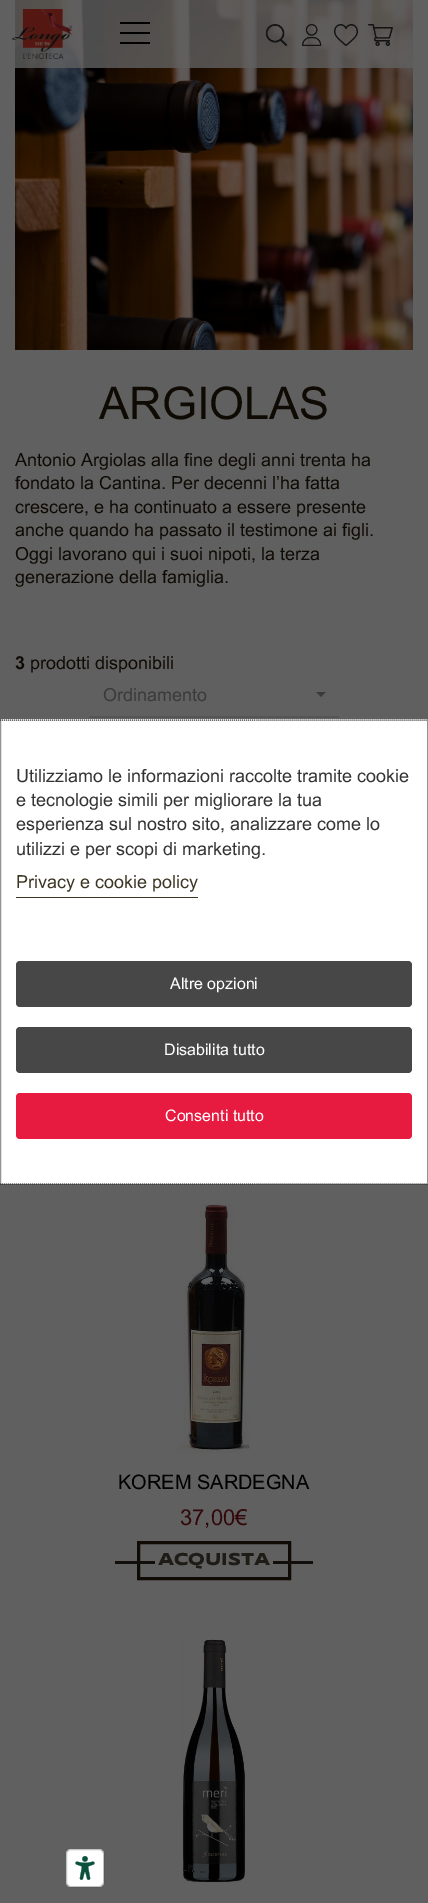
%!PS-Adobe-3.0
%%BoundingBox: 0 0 428 1903
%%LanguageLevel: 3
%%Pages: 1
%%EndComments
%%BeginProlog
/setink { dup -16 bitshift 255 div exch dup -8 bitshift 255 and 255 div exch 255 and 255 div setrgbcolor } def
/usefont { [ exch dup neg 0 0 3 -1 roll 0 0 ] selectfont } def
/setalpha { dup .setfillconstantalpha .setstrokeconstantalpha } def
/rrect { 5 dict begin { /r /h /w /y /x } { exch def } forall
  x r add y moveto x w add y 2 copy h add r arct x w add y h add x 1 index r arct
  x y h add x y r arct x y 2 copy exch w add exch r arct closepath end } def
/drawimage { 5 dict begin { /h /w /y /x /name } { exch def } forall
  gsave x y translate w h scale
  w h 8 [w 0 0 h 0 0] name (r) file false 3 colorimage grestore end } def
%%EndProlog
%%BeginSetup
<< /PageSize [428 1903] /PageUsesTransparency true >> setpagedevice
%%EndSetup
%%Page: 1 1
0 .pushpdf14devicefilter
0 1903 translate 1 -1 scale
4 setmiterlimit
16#606060 setink
0 0 428 1903 rectfill
(img6.raw) 15 0 398 350 drawimage
0.8 setalpha
15 0 398 68 rectfill
1 setalpha
(img1.raw) 12 9 61 50 drawimage
[
    [120 22 30 2 16#000000]
    [120 32 30 2 16#000000]
    [120 42 30 2 16#000000]
] { aload pop setink rectfill } forall
(img2.raw) 265 24 23 22 drawimage
(img3.raw) 302 24 20 22 drawimage
(img4.raw) 334 24 24 22 drawimage
(img5.raw) 368 24 25 22 drawimage
/Arial-Regular 45 usefont
16#0F0B04 setink
99 419 moveto (ARGIOLAS) show
/Arial-Regular 18 usefont
[
    [(Antonio Argiolas alla fine degli anni trenta ha) 15 466]
    [(fondato la Cantina. Per decenni l’ha fatta) 15 489]
    [(crescere, e ha continuato a essere presente) 15 513]
    [(anche quando ha passato il testimone ai figli.) 15 536]
    [(Oggi lavorano qui i suoi nipoti, la terza) 15 560]
    [(generazione della famiglia.) 15 583]
] { aload pop moveto show } forall
/Arial-Bold 18 usefont
15 669 moveto (3) show
/Arial-Regular 18 usefont
30 669 moveto (prodotti disponibili) show
16#555555 setink
89 716 250 2 rectfill
16#3A3A3A setink
103 701 moveto (Ordinamento) show
316 692 moveto 326 692 lineto 321 697 lineto closepath fill
(img7.raw) 176 1204 74 249 drawimage
/Arial-Regular 20 usefont
16#000000 setink
118 1489 moveto (KOREM SARDEGNA) show
/Arial-Regular 22 usefont
16#32080B setink
180 1525 moveto (37,00€) show
16#0F0B04 setink
3 setlinewidth
138.5 1542.5 151 36 rectstroke
16#110E0B setink
115 1561 40 3 rectfill
/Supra-Bold 18 usefont
16#1F1C17 setink
158 1565 moveto (ACQUISTA) show
16#110E0B setink
273 1561 40 3 rectfill
(img8.raw) 182 1639 64 244 drawimage
16#FFFFFF setink
0 719 428 465 rectfill
16#333333 setink
1 setlinewidth
[1 1] 0 setdash
0 720 moveto 428 720 lineto stroke
427.5 719.5 moveto 427.5 1184.5 lineto stroke
0 1184 moveto 428 1184 lineto stroke
0.5 719.5 moveto 0.5 1184.5 lineto stroke
/Arial-Regular 18 usefont
[
    [(Utilizziamo le informazioni raccolte tramite cookie) 16 782]
    [(e tecnologie simili per migliorare la tua) 16 806]
    [(esperienza sul nostro sito, analizzare come lo) 16 830]
    [(utilizzi e per scopi di marketing.) 16 855]
] { aload pop moveto show } forall
16#3D3523 setink
16 888 moveto (Privacy e cookie policy) show
16 897 182 1 rectfill
16#474747 setink
16 961 396 46 4 rrect fill
/Arial-Regular 16 usefont
16#FFFFFF setink
170 989 moveto (Altre opzioni) show
16#474747 setink
16 1027 396 46 4 rrect fill
16#FFFFFF setink
164 1055 moveto (Disabilita tutto) show
16#E71A40 setink
16 1093 396 46 4 rrect fill
16#FFFFFF setink
165 1121 moveto (Consenti tutto) show
66 1849 38 38 5 rrect fill
(img9.raw) 75 1856 20 24 drawimage
0.24 setalpha
16#000000 setink
[] 0 setdash
66.5 1849.5 37 37 4.5 rrect stroke
.poppdf14devicefilter showpage
%%EOF
